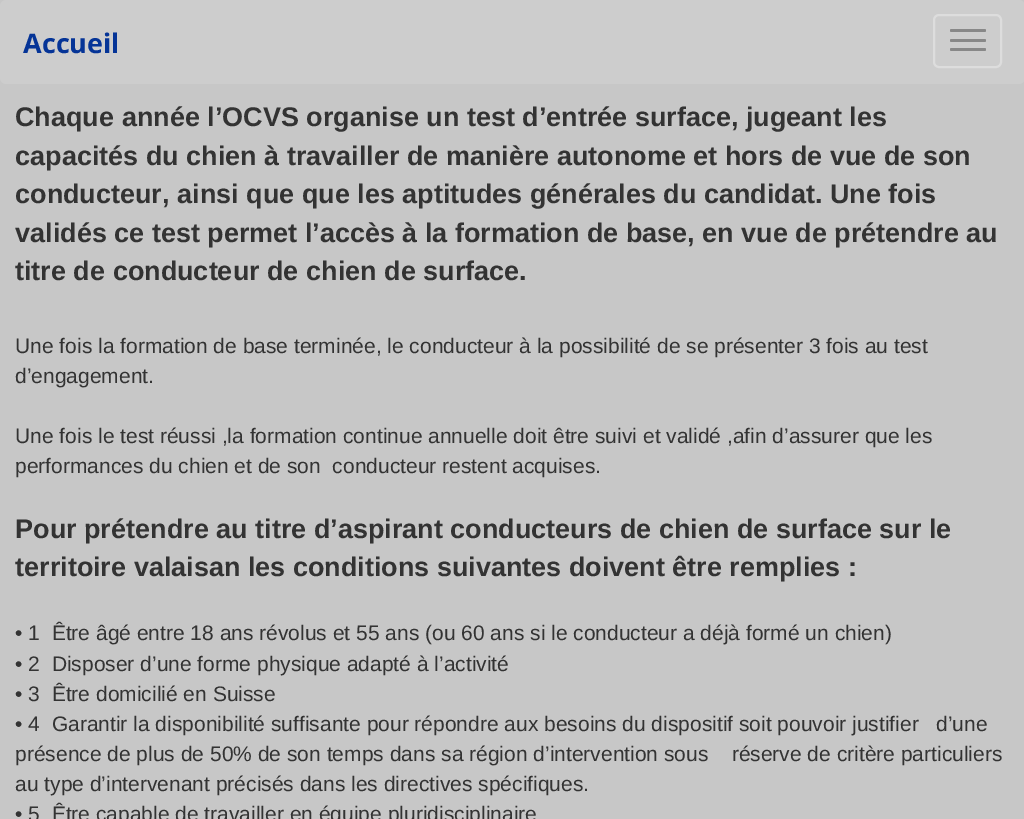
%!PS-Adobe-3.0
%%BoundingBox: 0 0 1024 819
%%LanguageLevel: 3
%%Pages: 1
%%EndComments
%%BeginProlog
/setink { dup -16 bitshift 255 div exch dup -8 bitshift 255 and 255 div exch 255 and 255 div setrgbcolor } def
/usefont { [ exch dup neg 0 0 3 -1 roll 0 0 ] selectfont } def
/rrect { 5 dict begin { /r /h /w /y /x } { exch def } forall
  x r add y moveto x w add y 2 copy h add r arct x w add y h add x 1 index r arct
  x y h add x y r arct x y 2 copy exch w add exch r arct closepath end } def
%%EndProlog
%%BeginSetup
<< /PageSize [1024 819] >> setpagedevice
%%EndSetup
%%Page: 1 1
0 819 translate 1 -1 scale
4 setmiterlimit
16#C7C7C7 setink
0 0 1024 819 rectfill
16#CDCDCD setink
0 0 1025 84 6 rrect fill
/OpenSans-Bold 27 usefont
16#053497 setink
23 53 moveto (Accueil) show
16#DDDDDD setink
2 setlinewidth
934 15 67 52 5 rrect stroke
16#888888 setink
950 29 36 3 1.5 rrect fill
950 39 36 3 1.5 rrect fill
950 48 36 3 1.5 rrect fill
/LiberationSans-Bold 27 usefont
16#333333 setink
[
    [(Chaque année l’OCVS organise un test d’entrée surface, jugeant les) 15 126]
    [(capacités du chien à travailler de manière autonome et hors de vue de son) 15 165]
    [(conducteur, ainsi que que les aptitudes générales du candidat. Une fois) 15 203]
    [(validés ce test permet l’accès à la formation de base, en vue de prétendre au) 15 242]
    [(titre de conducteur de chien de surface.) 15 280]
] { aload pop moveto show } forall
/LiberationSans-Regular 21 usefont
[
    [(Une fois la formation de base terminée, le conducteur à la possibilité de se présenter 3 fois au test) 15 353]
    [(d’engagement.) 15 383]
    [(Une fois le test réussi ,la formation continue annuelle doit être suivi et validé ,afin d’assurer que les) 15 443]
    [(performances du chien et de son  conducteur restent acquises.) 15 473]
] { aload pop moveto show } forall
/LiberationSans-Bold 27 usefont
15 538 moveto (Pour prétendre au titre d’aspirant conducteurs de chien de surface sur le) show
15 576 moveto (territoire valaisan les conditions suivantes doivent être remplies :) show
/LiberationSans-Regular 21 usefont
[
    [(• 1  Être âgé entre 18 ans révolus et 55 ans \(ou 60 ans si le conducteur a déjà formé un chien\)) 15 640]
    [(• 2  Disposer d’une forme physique adapté à l’activité) 15 671]
    [(• 3  Être domicilié en Suisse) 15 701]
    [(• 4  Garantir la disponibilité suffisante pour répondre aux besoins du dispositif soit pouvoir justifier   d’une) 15 731]
    [(présence de plus de 50% de son temps dans sa région d’intervention sous    réserve de critère particuliers) 15 761]
    [(au type d’intervenant précisés dans les directives spécifiques.) 15 791]
    [(• 5  Être capable de travailler en équipe pluridisciplinaire) 15 821]
] { aload pop moveto show } forall
showpage
%%EOF
